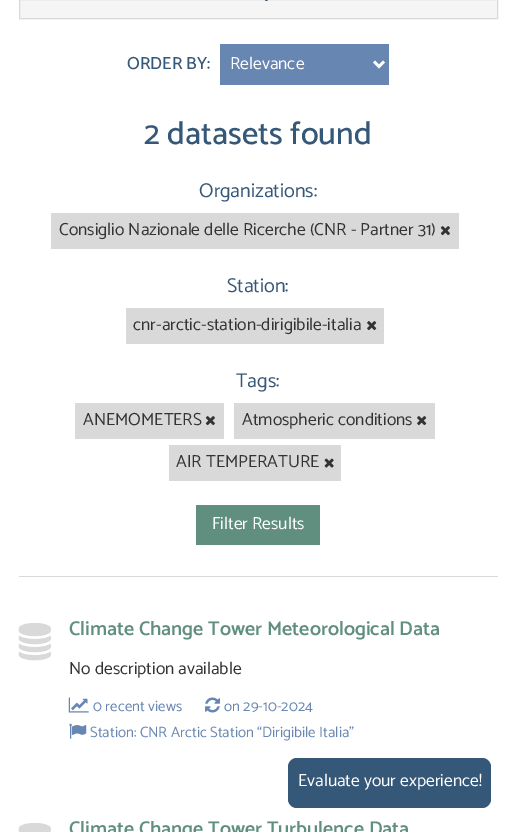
%!PS-Adobe-3.0
%%BoundingBox: 0 0 516 832
%%LanguageLevel: 3
%%Pages: 1
%%EndComments
%%BeginProlog
/setink { dup -16 bitshift 255 div exch dup -8 bitshift 255 and 255 div exch 255 and 255 div setrgbcolor } def
/usefont { [ exch dup neg 0 0 3 -1 roll 0 0 ] selectfont } def
/rrect { 5 dict begin { /r /h /w /y /x } { exch def } forall
  x r add y moveto x w add y 2 copy h add r arct x w add y h add x 1 index r arct
  x y h add x y r arct x y 2 copy exch w add exch r arct closepath end } def
/drawimage { 5 dict begin { /h /w /y /x /name } { exch def } forall
  gsave x y translate w h scale
  w h 8 [w 0 0 h 0 0] name (r) file false 3 colorimage grestore end } def
%%EndProlog
%%BeginSetup
<< /PageSize [516 832] >> setpagedevice
%%EndSetup
%%Page: 1 1
0 832 translate 1 -1 scale
4 setmiterlimit
16#FFFFFF setink
0 0 516 832 rectfill
16#D9D9D9 setink
19 576 479 1 rectfill
16#F5F5F5 setink
19.5 -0.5 moveto 497.5 -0.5 lineto 497.5 18.5 lineto 19.5 18.5 lineto closepath gsave fill grestore
16#D9D9D9 setink
stroke
(img1.raw) 264 0 4 2 drawimage
/Catamaran-Medium 17.5 usefont
16#355778 setink
127 69 moveto (ORDER BY:) show
16#6786B2 setink
220 44 169 41 rectfill
16#FFFFFF setink
2.5 setlinewidth
374 61.5 moveto 379 66.5 lineto 384 61.5 lineto stroke
/Catamaran-Regular 17.5 usefont
230 69 moveto (Relevance) show
/Catamaran-Medium 32.5 usefont
16#355778 setink
144 144 moveto (2 datasets found) show
/Catamaran-Regular 20 usefont
199 197 moveto (Organizations:) show
16#D9D9D9 setink
51 213 408 36 rectfill
/Catamaran-Regular 17.5 usefont
16#333333 setink
59 235 moveto (Consiglio Nazionale delle Ricerche \(CNR - Partner 31\)) show
(img2.raw) 440 226 10 10 drawimage
/Catamaran-Regular 20 usefont
16#355778 setink
227 292 moveto (Station:) show
16#D9D9D9 setink
126 308 258 36 rectfill
/Catamaran-Regular 17.5 usefont
16#333333 setink
133 330 moveto (cnr-arctic-station-dirigibile-italia) show
(img3.raw) 367 321 10 10 drawimage
/Catamaran-Regular 20 usefont
16#355778 setink
236 387 moveto (Tags:) show
16#D9D9D9 setink
75 403 149 36 rectfill
/Catamaran-Regular 17.5 usefont
16#333333 setink
83 425 moveto (ANEMOMETERS) show
(img2.raw) 205 416 10 10 drawimage
16#D9D9D9 setink
234 403 201 36 rectfill
16#333333 setink
242 425 moveto (Atmospheric conditions) show
(img3.raw) 417 416 10 10 drawimage
16#D9D9D9 setink
169 445 172 36 rectfill
16#333333 setink
176 467 moveto (AIR TEMPERATURE) show
(img4.raw) 324 458 10 10 drawimage
16#608E7F setink
196 505 124 40 rectfill
16#FFFFFF setink
212 529 moveto (Filter Results) show
(img5.raw) 18 622 33 39 drawimage
/Catamaran-SemiBold 20 usefont
16#608E7F setink
69 635 moveto (Climate Change Tower Meteorological Data) show
/Catamaran-Regular 17.5 usefont
16#333333 setink
69 674 moveto (No description available) show
(img6.raw) 68 697 21 16 drawimage
/Catamaran-Regular 15 usefont
16#6786B2 setink
93 711 moveto (0 recent views) show
(img7.raw) 205 697 15 16 drawimage
224 711 moveto (on 29-10-2024) show
(img8.raw) 69 723 18 16 drawimage
90 737 moveto (Station: CNR Arctic Station “Dirigibile Italia”) show
(img9.raw) 18 822 33 10 drawimage
/Catamaran-SemiBold 20 usefont
16#608E7F setink
69 835 moveto (Climate Change Tower Turbulence Data) show
16#355778 setink
288 758 203 50 9 rrect fill
/Catamaran-Regular 17.5 usefont
16#FFFFFF setink
298 786 moveto (Evaluate your experience!) show
showpage
%%EOF
